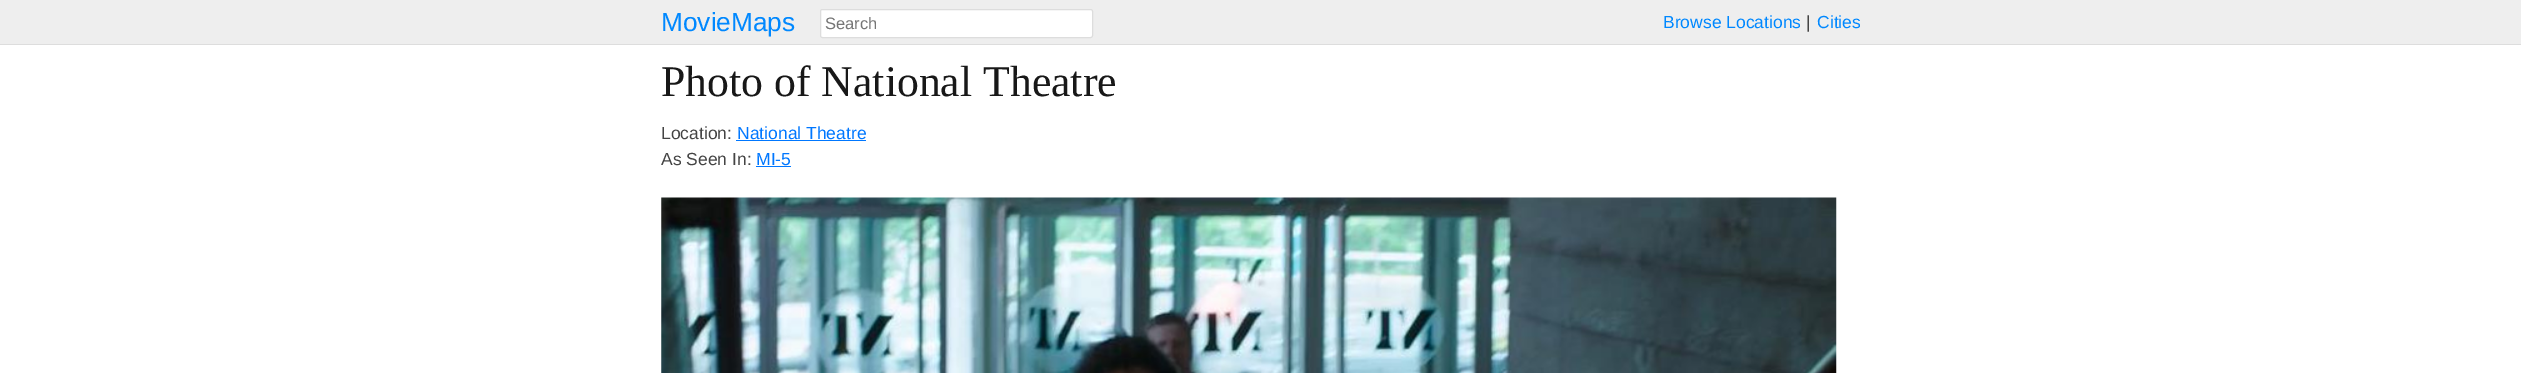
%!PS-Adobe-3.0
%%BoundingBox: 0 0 2521 373
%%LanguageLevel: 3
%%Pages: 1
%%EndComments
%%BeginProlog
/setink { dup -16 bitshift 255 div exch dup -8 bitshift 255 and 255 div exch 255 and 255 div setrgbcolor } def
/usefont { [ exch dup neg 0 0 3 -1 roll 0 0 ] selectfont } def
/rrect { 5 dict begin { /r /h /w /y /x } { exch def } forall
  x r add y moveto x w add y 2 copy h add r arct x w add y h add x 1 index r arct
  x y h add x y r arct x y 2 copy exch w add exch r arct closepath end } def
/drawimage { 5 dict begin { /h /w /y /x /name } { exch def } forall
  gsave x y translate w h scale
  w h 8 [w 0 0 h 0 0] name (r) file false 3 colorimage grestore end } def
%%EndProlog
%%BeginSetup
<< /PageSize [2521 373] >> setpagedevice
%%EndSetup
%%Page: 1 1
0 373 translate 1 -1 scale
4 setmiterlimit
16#FFFFFF setink
0 0 2521 373 rectfill
16#EEEEEE setink
0 0 2521 44 rectfill
16#DDDDDD setink
0 44 2521 1 rectfill
/LiberationSans-Regular 26.25 usefont
16#0088FF setink
661 31 moveto (MovieMaps) show
16#FFFFFF setink
820.5 9.5 272 28 2 rrect gsave fill grestore
16#DDDDDD setink
stroke
/LiberationSans-Regular 16.5 usefont
16#757575 setink
825 29 moveto (Search) show
/LiberationSans-Regular 17.5 usefont
16#0088FF setink
1663 28 moveto (Browse Locations) show
16#444444 setink
1806 28 moveto (|) show
16#0088FF setink
1817 28 moveto (Cities) show
/LiberationSerif-Regular 43.75 usefont
16#181818 setink
661 96 moveto (Photo of National Theatre) show
/LiberationSans-Regular 17.5 usefont
16#444444 setink
661 139 moveto (Location:) show
16#0077FF setink
737 139 moveto (National Theatre) show
736 140 130 1 rectfill
16#444444 setink
661 165 moveto (As Seen In:) show
16#0077FF setink
756 165 moveto (MI-5) show
756 166 35 1 rectfill
(img1.raw) 661 197 1176 176 drawimage
showpage
%%EOF
